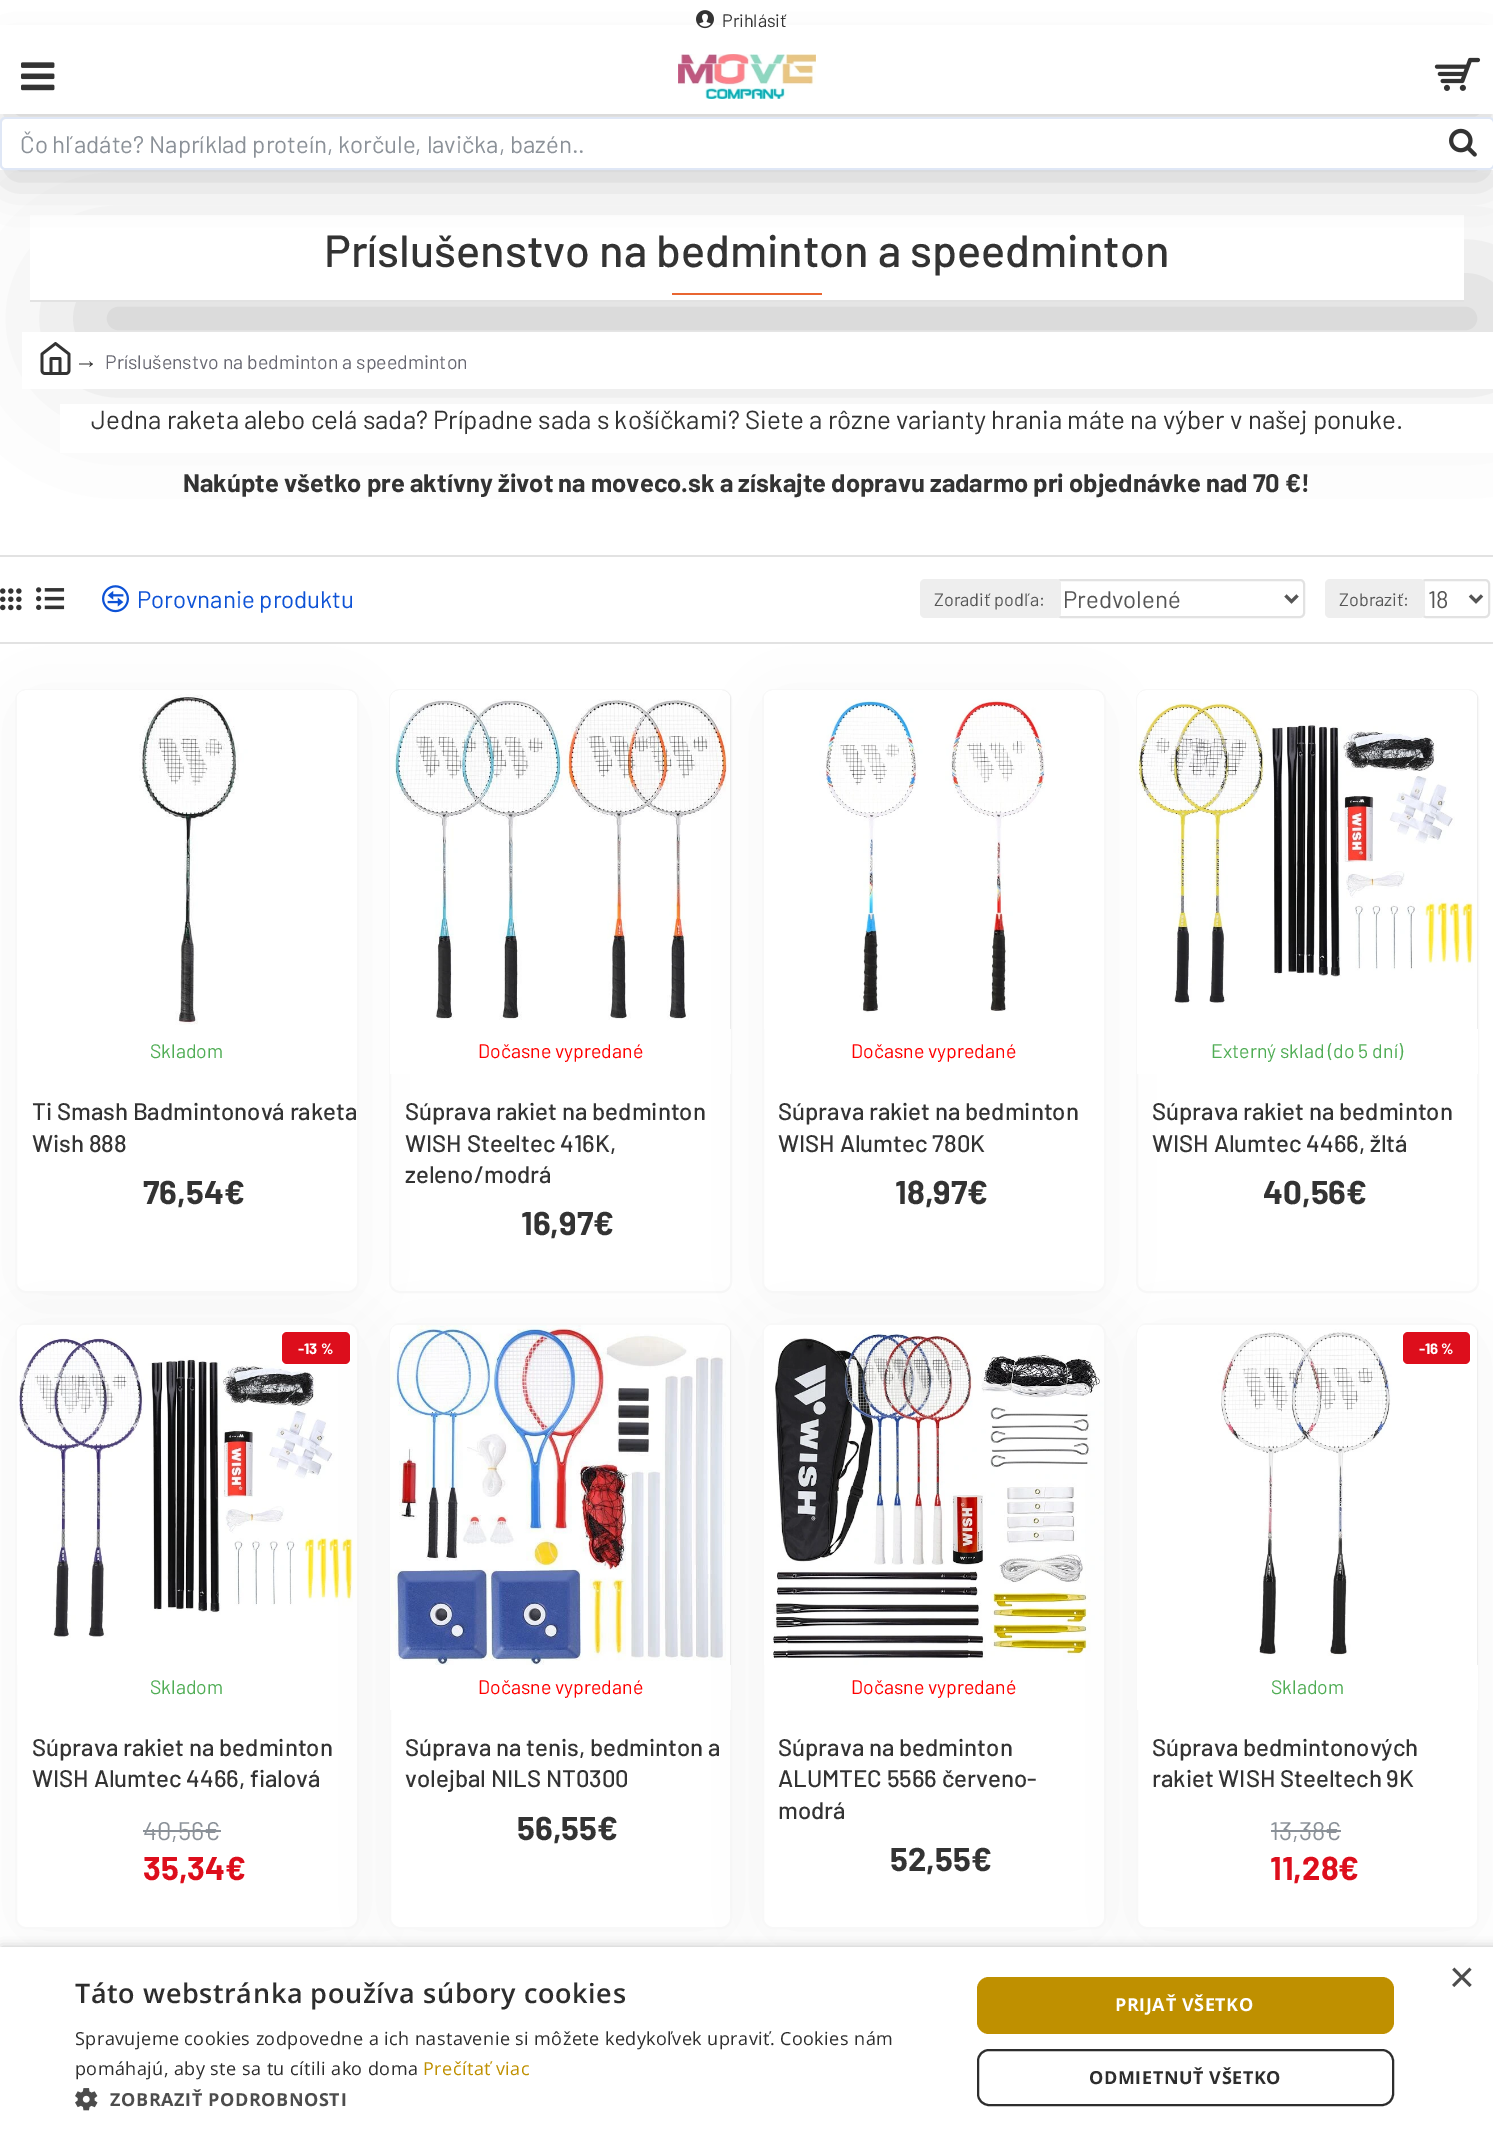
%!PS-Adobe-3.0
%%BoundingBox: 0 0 1493 2136
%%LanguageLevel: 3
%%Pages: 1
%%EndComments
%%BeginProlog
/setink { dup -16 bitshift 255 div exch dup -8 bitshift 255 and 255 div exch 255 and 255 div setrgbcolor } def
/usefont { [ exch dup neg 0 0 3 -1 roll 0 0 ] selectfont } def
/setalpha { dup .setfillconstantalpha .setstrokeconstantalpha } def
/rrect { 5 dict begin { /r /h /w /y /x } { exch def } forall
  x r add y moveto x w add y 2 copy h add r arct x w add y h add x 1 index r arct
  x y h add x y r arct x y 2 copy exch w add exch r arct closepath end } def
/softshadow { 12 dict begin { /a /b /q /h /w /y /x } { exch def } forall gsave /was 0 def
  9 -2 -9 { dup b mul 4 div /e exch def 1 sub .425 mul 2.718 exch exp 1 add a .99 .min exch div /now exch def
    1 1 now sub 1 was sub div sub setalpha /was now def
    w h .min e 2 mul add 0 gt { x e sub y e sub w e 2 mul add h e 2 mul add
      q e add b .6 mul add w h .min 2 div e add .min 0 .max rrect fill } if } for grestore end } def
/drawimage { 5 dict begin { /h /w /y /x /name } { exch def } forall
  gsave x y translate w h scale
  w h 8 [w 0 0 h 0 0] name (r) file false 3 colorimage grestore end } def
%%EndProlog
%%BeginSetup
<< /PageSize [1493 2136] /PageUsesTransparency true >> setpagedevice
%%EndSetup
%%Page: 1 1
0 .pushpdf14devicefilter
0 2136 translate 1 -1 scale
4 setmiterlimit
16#FFFFFF setink
0 0 1493 2136 rectfill
16#000000 setink
8 137 1479 40 0 22.5 0.2 softshadow
gsave
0 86 moveto 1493 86 lineto 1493 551 lineto 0 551 lineto closepath 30 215 moveto 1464 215 lineto 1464 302 lineto 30 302 lineto closepath eoclip newpath
90 290 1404 57 0 67.5 0.2 softshadow
grestore
16#FFFFFF setink
0 114 1493 56 rectfill
16#000000 setink
8 62 1479 60 0 22.5 0.2 softshadow
16#FFFFFF setink
0 25 1493 89 rectfill
(img1.raw) 21 62 34 29 drawimage
(img2.raw) 678 54 138 45 drawimage
(img3.raw) 1434 57 47 34 drawimage
(img4.raw) 696 10 18 19 drawimage
/Barlow-Regular 18 usefont
16#333333 setink
722 27 moveto (Prihlásiť) show
16#DFE7F6 setink
2 setlinewidth
1 118 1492 51 4 rrect stroke
16#FFFFFF setink
7 119 moveto 1433 119 lineto 1433 168 lineto 7 168 lineto 4 168 2 166 2 163 curveto 2 124 lineto 2 121 4 119 7 119 curveto closepath fill
/Barlow-Regular 24 usefont
16#8B9198 setink
20 153 moveto (Čo hľadáte? Napríklad proteín, korčule, lavička, bazén..) show
16#FFFFFF setink
1433 119 moveto 1488 119 lineto 1491 119 1493 121 1493 124 curveto 1493 163 lineto 1493 166 1491 168 1488 168 curveto 1433 168 lineto closepath fill
(img5.raw) 1449 128 28 29 drawimage
16#E2E2E2 setink
30 300 1434 2 rectfill
/Barlow-Medium 45 usefont
16#333333 setink
324 267 moveto (Príslušenstvo na bedminton a speedminton) show
16#E96631 setink
672 293 150 2 rectfill
16#FFFFFF setink
22 332 1471 57 rectfill
(img6.raw) 40 342 31 33 drawimage
/LiberationSerif-Regular 24 usefont
16#333333 setink
74 368 moveto (→) show
/Barlow-Regular 19.5 usefont
16#696973 setink
105 369 moveto (Príslušenstvo na bedminton a speedminton) show
16#FFFFFF setink
60 404 1433 49 rectfill
/Barlow-Regular 26 usefont
16#333333 setink
91 429 moveto (Jedna raketa alebo celá sada? Prípadne sada s košíčkami? Siete a rôzne varianty hrania máte na výber v našej ponuke.) show
/Barlow-Bold 25.5 usefont
183 492 moveto (Nakúpte všetko pre aktívny život na moveco.sk a získajte dopravu zadarmo pri objednávke nad 70 €!) show
16#E2E2E2 setink
0 555 1493 2 rectfill
0 642 1493 2 rectfill
(img7.raw) 0 588 22 23 drawimage
(img8.raw) 36 587 29 23 drawimage
(img9.raw) 102 585 27 28 drawimage
/Barlow-Regular 24 usefont
16#0D52D6 setink
137 608 moveto (Porovnanie produktu) show
16#000000 setink
30 711 314 575 0 37.5 0.05 softshadow
16#F8F8F8 setink
390 690 341 602 10 rrect stroke
16#EEEEEE setink
399 690 moveto 722 690 lineto 727 690 731 694 731 699 curveto 731 1029 lineto 390 1029 lineto 390 699 lineto 390 694 394 690 399 690 curveto closepath fill
(img11.raw) 390 690 340 339 drawimage
16#FFFFFF setink
390 1029 341 45 rectfill
16#000000 setink
777 711 314 575 0 37.5 0.05 softshadow
16#E2E2E2 setink
1057 580 247 37 4 rrect stroke
16#EEEEEE setink
920 579 141 39 5 rrect fill
/Barlow-Regular 18 usefont
16#555555 setink
934 606 moveto (Zoradiť podľa:) show
3 setlinewidth
1285.5 595.5 moveto 1291.5 601.5 lineto 1297.5 595.5 lineto stroke
/Barlow-Regular 24 usefont
1063 608 moveto (Predvolené) show
16#E2E2E2 setink
2 setlinewidth
1422 580 67 37 4 rrect stroke
16#EEEEEE setink
1325 579 100 39 5 rrect fill
/Barlow-Regular 18 usefont
16#555555 setink
1339 606 moveto (Zobraziť:) show
3 setlinewidth
1470 595.5 moveto 1476 601.5 lineto 1482 595.5 lineto stroke
/Barlow-Regular 24 usefont
1428 608 moveto (18) show
16#FFFFFF setink
16 690 342 602 10 rrect gsave fill grestore
16#F8F8F8 setink
2 setlinewidth
stroke
16#EEEEEE setink
26 690 moveto 348 690 lineto 353 690 357 694 357 699 curveto 357 1029 lineto 17 1029 lineto 17 699 lineto 17 694 21 690 26 690 curveto closepath fill
(img10.raw) 17 690 340 339 drawimage
/Barlow-Regular 19.5 usefont
16#50AD55 setink
150 1058 moveto (Skladom) show
/Barlow-Medium 24 usefont
16#333333 setink
32 1120 moveto (Ti Smash Badmintonová raketa) show
32 1152 moveto (Wish 888) show
/Barlow-Bold 33 usefont
143 1204 moveto (76,54€) show
/Barlow-Regular 19.5 usefont
16#FF0000 setink
478 1058 moveto (Dočasne vypredané) show
/Barlow-Medium 24 usefont
16#333333 setink
[
    [(Súprava rakiet na bedminton) 405 1120]
    [(WISH Steeltec 416K,) 405 1152]
    [(zeleno/modrá) 405 1183]
] { aload pop moveto show } forall
/Barlow-Bold 33 usefont
521 1235 moveto (16,97€) show
16#FFFFFF setink
763 690 342 602 10 rrect gsave fill grestore
16#F8F8F8 setink
stroke
16#EEEEEE setink
773 690 moveto 1095 690 lineto 1100 690 1104 694 1104 699 curveto 1104 1029 lineto 764 1029 lineto 764 699 lineto 764 694 768 690 773 690 curveto closepath fill
(img12.raw) 764 690 340 339 drawimage
/Barlow-Regular 19.5 usefont
16#FF0000 setink
851 1058 moveto (Dočasne vypredané) show
/Barlow-Medium 24 usefont
16#333333 setink
778 1120 moveto (Súprava rakiet na bedminton) show
778 1152 moveto (WISH Alumtec 780K) show
/Barlow-Bold 33 usefont
895 1204 moveto (18,97€) show
16#F8F8F8 setink
1137 690 341 602 10 rrect stroke
16#EEEEEE setink
1146 690 moveto 1469 690 lineto 1474 690 1478 694 1478 699 curveto 1478 1029 lineto 1137 1029 lineto 1137 699 lineto 1137 694 1141 690 1146 690 curveto closepath fill
(img13.raw) 1137 690 340 339 drawimage
16#FFFFFF setink
1137 1029 341 45 rectfill
/Barlow-Regular 19.5 usefont
16#50AD55 setink
1211 1058 moveto (Externý sklad \(do 5 dní\)) show
/Barlow-Medium 24 usefont
16#333333 setink
1152 1120 moveto (Súprava rakiet na bedminton) show
1152 1152 moveto (WISH Alumtec 4466, žltá) show
/Barlow-Bold 33 usefont
1263 1204 moveto (40,56€) show
16#000000 setink
30 1346 314 576 0 37.5 0.05 softshadow
16#FFFFFF setink
16 1324 342 604 10 rrect gsave fill grestore
16#F8F8F8 setink
stroke
(img14.raw) 17 1325 340 340 drawimage
16#DD0E1C setink
282 1332 68 32 5 rrect fill
/Barlow-Bold 15 usefont
16#FFFFFF setink
298 1354 moveto (-13 %) show
/Barlow-Regular 19.5 usefont
16#50AD55 setink
150 1694 moveto (Skladom) show
/Barlow-Medium 24 usefont
16#333333 setink
32 1756 moveto (Súprava rakiet na bedminton) show
32 1787 moveto (WISH Alumtec 4466, fialová) show
/Barlow-Regular 25.5 usefont
16#8B9198 setink
143 1840 moveto (40,56€) show
143 1830 78 2 rectfill
/Barlow-Bold 33 usefont
16#DD0E1C setink
143 1880 moveto (35,34€) show
16#000000 setink
404 1346 313 576 0 37.5 0.05 softshadow
16#FFFFFF setink
390 1324 341 604 10 rrect gsave fill grestore
16#F8F8F8 setink
stroke
16#EEEEEE setink
399 1325 moveto 722 1325 lineto 727 1325 731 1329 731 1334 curveto 731 1665 lineto 390 1665 lineto 390 1334 lineto 390 1329 394 1325 399 1325 curveto closepath fill
(img15.raw) 390 1325 340 340 drawimage
16#FFFFFF setink
390 1665 341 45 rectfill
/Barlow-Regular 19.5 usefont
16#FF0000 setink
478 1694 moveto (Dočasne vypredané) show
/Barlow-Medium 24 usefont
16#333333 setink
405 1756 moveto (Súprava na tenis, bedminton a) show
405 1787 moveto (volejbal NILS NT0300) show
/Barlow-Bold 33 usefont
517 1840 moveto (56,55€) show
16#000000 setink
777 1346 314 576 0 37.5 0.05 softshadow
16#FFFFFF setink
763 1324 342 604 10 rrect gsave fill grestore
16#F8F8F8 setink
stroke
(img16.raw) 764 1325 340 340 drawimage
/Barlow-Regular 19.5 usefont
16#FF0000 setink
851 1694 moveto (Dočasne vypredané) show
/Barlow-Medium 24 usefont
16#333333 setink
[
    [(Súprava na bedminton) 778 1756]
    [(ALUMTEC 5566 červeno-) 778 1787]
    [(modrá) 778 1819]
] { aload pop moveto show } forall
/Barlow-Bold 33 usefont
890 1871 moveto (52,55€) show
16#000000 setink
1151 1346 313 576 0 37.5 0.05 softshadow
16#FFFFFF setink
1137 1324 341 604 10 rrect gsave fill grestore
16#F8F8F8 setink
stroke
16#EEEEEE setink
1146 1325 moveto 1469 1325 lineto 1474 1325 1478 1329 1478 1334 curveto 1478 1665 lineto 1137 1665 lineto 1137 1334 lineto 1137 1329 1141 1325 1146 1325 curveto closepath fill
(img17.raw) 1137 1325 340 340 drawimage
16#DD0E1C setink
1403 1332 67 32 5 rrect fill
/Barlow-Bold 15 usefont
16#FFFFFF setink
1419 1354 moveto (-16 %) show
1137 1665 341 45 rectfill
/Barlow-Regular 19.5 usefont
16#50AD55 setink
1271 1694 moveto (Skladom) show
/Barlow-Medium 24 usefont
16#333333 setink
1152 1756 moveto (Súprava bedmintonových) show
1152 1787 moveto (rakiet WISH Steeltech 9K) show
/Barlow-Regular 25.5 usefont
16#8B9198 setink
1270 1840 moveto (13,38€) show
1271 1830 70 2 rectfill
/Barlow-Bold 33 usefont
16#DD0E1C setink
1270 1880 moveto (11,28€) show
16#000000 setink
2 1950 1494 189 0 6 0.35 softshadow
16#FFFFFF setink
0 1947 1493 189 rectfill
/LiberationSans-Regular 44 usefont
16#4D4D4D setink
1449 1992 moveto (×) show
/OpenSans-SemiBold 27 usefont
16#2D2D2D setink
75 2003 moveto 0.6 0 (Táto webstránka používa súbory cookies) ashow
/OpenSans-Regular 18 usefont
75 2045 moveto 0.45 0 (Spravujeme cookies zodpovedne a ich nastavenie si môžete kedykoľvek upraviť. Cookies nám) ashow
75 2075 moveto 0.45 0 (pomáhajú, aby ste sa tu cítili ako doma) ashow
16#BF9000 setink
423 2075 moveto 0.45 0 (Prečítať viac) ashow
(img18.raw) 75 2088 23 23 drawimage
/OpenSans-Bold 18 usefont
16#4D4D4D setink
110 2106 moveto 0.6 0 (ZOBRAZIŤ PODROBNOSTI) ashow
16#BF9000 setink
977 1977 417 57 12 rrect fill
16#FFFFFF setink
1115 2011 moveto 0.6 0 (PRIJAŤ VŠETKO) ashow
16#2D2D2D setink
978 2050 415 55 11 rrect stroke
1089 2084 moveto 0.6 0 (ODMIETNUŤ VŠETKO) ashow
.poppdf14devicefilter showpage
%%EOF
